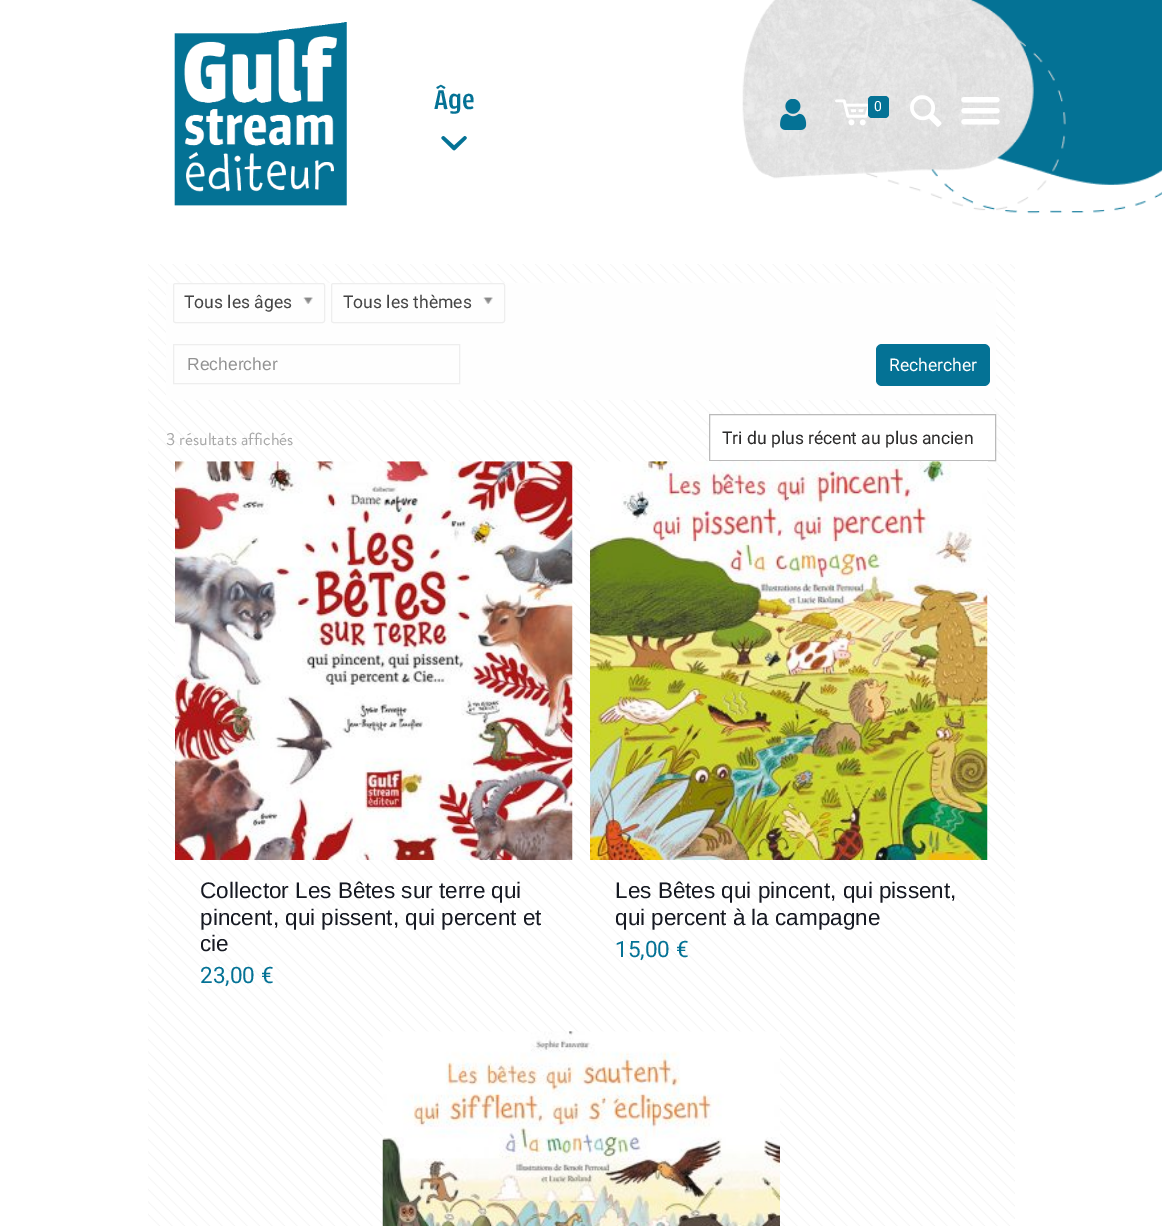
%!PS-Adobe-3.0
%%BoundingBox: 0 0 1162 1226
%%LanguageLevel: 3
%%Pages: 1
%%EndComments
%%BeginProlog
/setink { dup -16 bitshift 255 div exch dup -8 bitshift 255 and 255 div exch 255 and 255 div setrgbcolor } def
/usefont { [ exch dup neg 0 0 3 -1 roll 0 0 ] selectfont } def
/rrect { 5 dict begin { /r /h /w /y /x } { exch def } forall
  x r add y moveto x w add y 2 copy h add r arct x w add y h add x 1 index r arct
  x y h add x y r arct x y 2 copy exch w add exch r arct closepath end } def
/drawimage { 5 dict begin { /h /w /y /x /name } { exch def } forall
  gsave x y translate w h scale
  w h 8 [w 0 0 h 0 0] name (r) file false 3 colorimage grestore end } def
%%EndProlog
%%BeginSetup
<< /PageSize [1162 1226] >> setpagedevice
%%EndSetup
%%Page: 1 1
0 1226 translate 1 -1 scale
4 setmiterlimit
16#FFFFFF setink
0 0 1162 1226 rectfill
(img1.raw) 742 0 420 214 drawimage
(img2.raw) 174 22 173 184 drawimage
/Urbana-Medium 30 usefont
16#047295 setink
434 109 moveto (Âge) show
(img3.raw) 441 136 26 15 drawimage
(img4.raw) 780 99 27 31 drawimage
(img5.raw) 835 99 34 27 drawimage
868 96 21 22 4 rrect fill
/Roboto-Regular 14 usefont
16#FFFFFF setink
874 111 moveto (0) show
(img6.raw) 910 95 32 32 drawimage
(img7.raw) 961 97 39 28 drawimage
(img8.raw) 148 264 867 962 drawimage
16#FEFEFE setink
166 283 830 117 4 rrect fill
16#EEEEEE setink
173.5 283.5 151 39 2 rrect stroke
/Roboto-Regular 17.5 usefont
16#444444 setink
184 308 moveto (Tous les âges) show
(img9.raw) 303 297 10 7 drawimage
16#EEEEEE setink
331.5 283.5 173 39 2 rrect stroke
16#444444 setink
343 308 moveto (Tous les thèmes) show
(img9.raw) 483 297 10 7 drawimage
16#EEEEEE setink
173.5 344.5 286 39 rectstroke
/LiberationSans-Regular 17.5 usefont
16#929292 setink
187 370 moveto (Rechercher) show
16#047295 setink
876 344 114 42 6 rrect fill
/Roboto-Regular 17.5 usefont
16#FFFFFF setink
889 371 moveto (Rechercher) show
/BrandonGrotesque-Regular 17.5 usefont
16#A8A8A8 setink
166 445 moveto (3 résultats affichés) show
16#FFFFFF setink
709.5 414.5 moveto 995.5 414.5 lineto 995.5 460.5 lineto 709.5 460.5 lineto closepath gsave fill grestore
16#BABABA setink
stroke
/Roboto-Regular 17.5 usefont
16#2B2A2A setink
722 444 moveto (Tri du plus récent au plus ancien) show
(img10.raw) 175 461 398 399 drawimage
/LiberationSans-Regular 22.5 usefont
16#161922 setink
[
    [(Collector Les Bêtes sur terre qui) 200 898]
    [(pincent, qui pissent, qui percent et) 200 925]
    [(cie) 200 951]
] { aload pop moveto show } forall
/Roboto-Regular 22.5 usefont
16#047295 setink
200 983 moveto (23,00 €) show
(img11.raw) 590 461 398 399 drawimage
/LiberationSans-Regular 22.5 usefont
16#161922 setink
615 898 moveto (Les Bêtes qui pincent, qui pissent,) show
615 925 moveto (qui percent à la campagne) show
/Roboto-Regular 22.5 usefont
16#047295 setink
615 957 moveto (15,00 €) show
(img12.raw) 382 1031 398 195 drawimage
showpage
%%EOF
